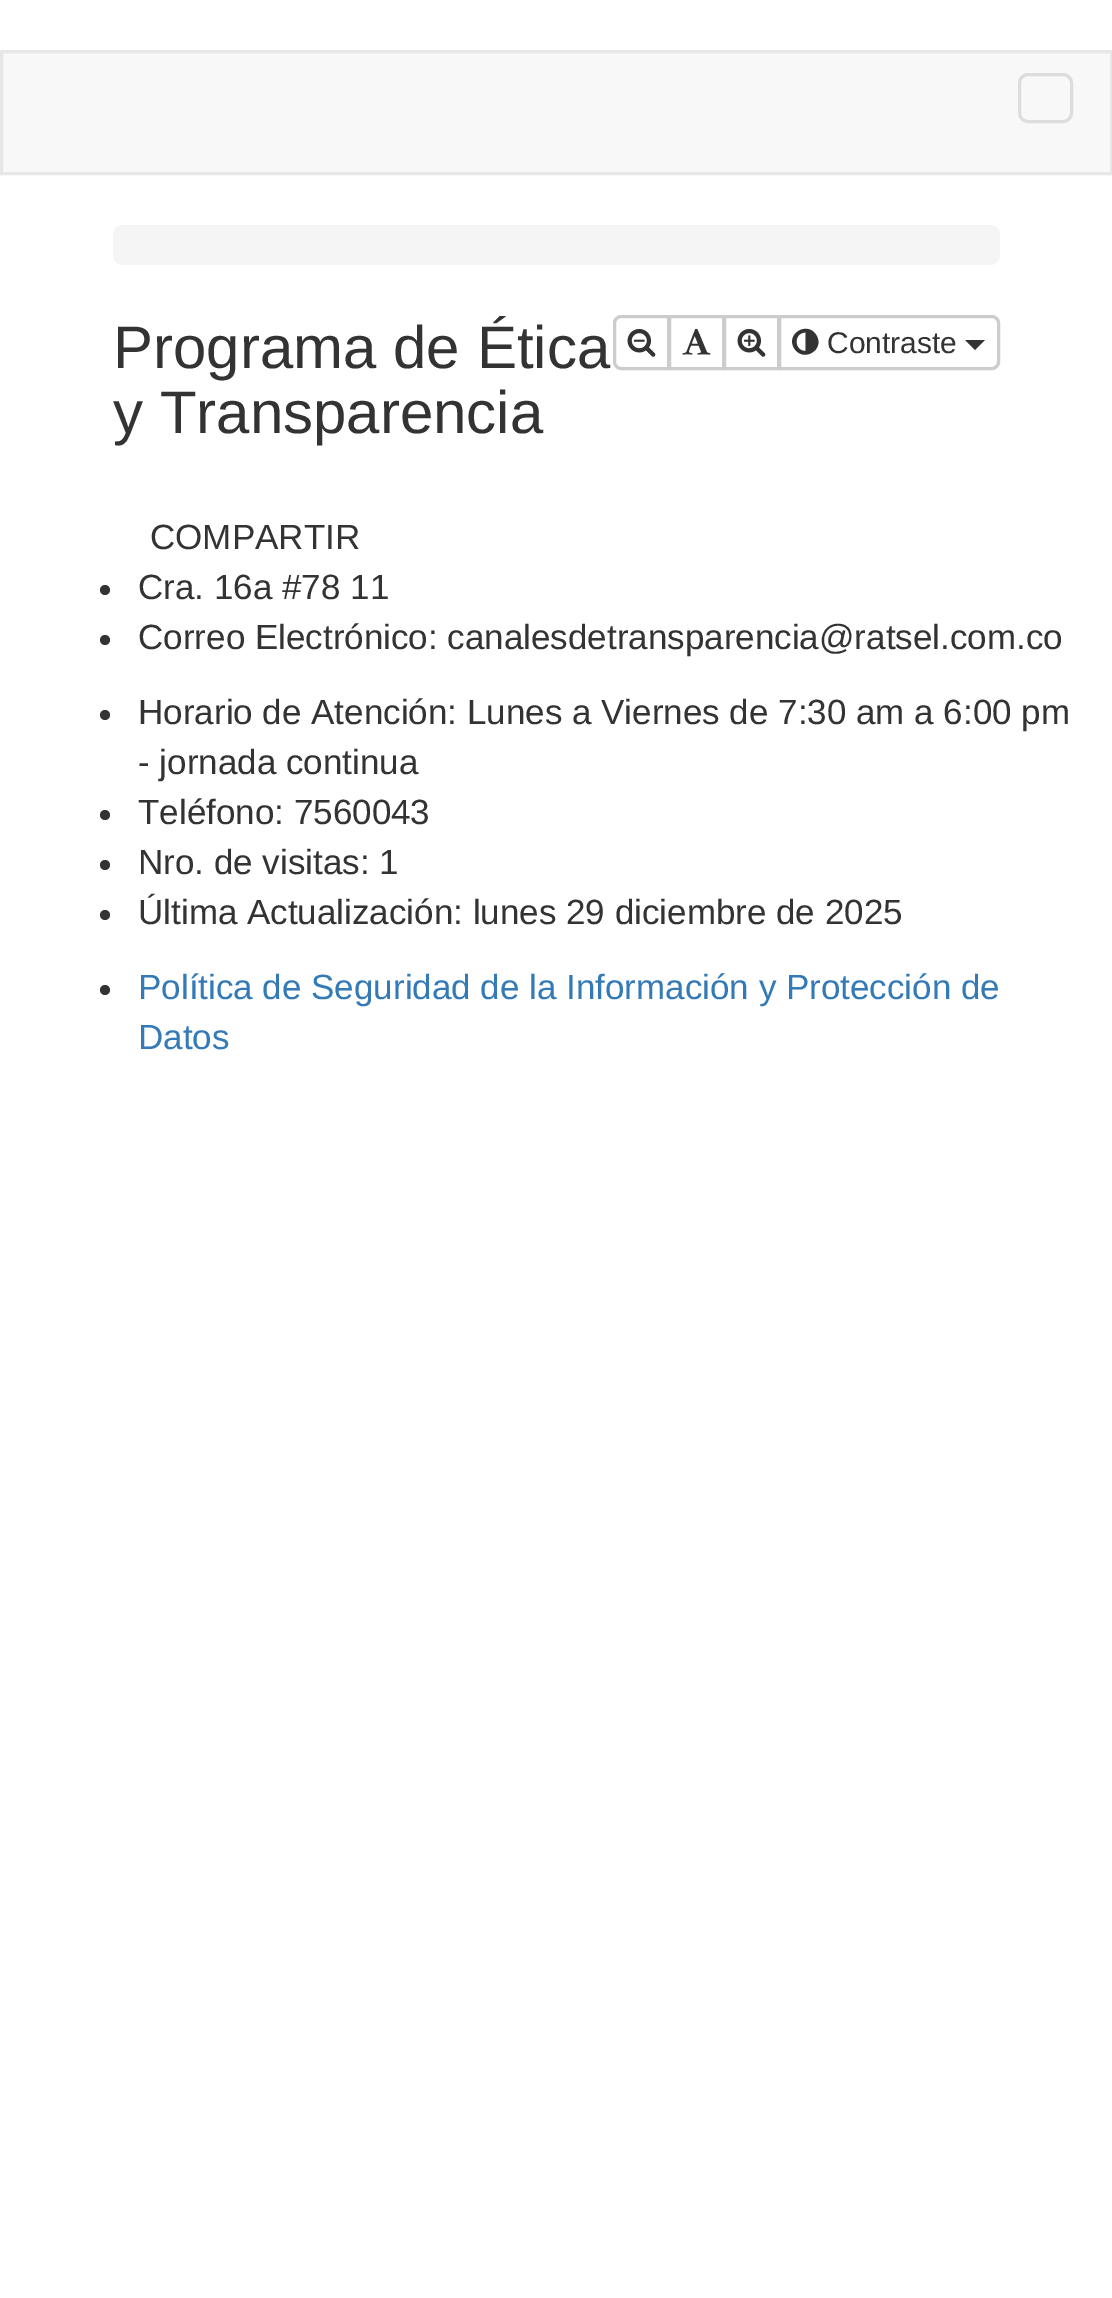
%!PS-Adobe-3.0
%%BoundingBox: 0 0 1112 2298
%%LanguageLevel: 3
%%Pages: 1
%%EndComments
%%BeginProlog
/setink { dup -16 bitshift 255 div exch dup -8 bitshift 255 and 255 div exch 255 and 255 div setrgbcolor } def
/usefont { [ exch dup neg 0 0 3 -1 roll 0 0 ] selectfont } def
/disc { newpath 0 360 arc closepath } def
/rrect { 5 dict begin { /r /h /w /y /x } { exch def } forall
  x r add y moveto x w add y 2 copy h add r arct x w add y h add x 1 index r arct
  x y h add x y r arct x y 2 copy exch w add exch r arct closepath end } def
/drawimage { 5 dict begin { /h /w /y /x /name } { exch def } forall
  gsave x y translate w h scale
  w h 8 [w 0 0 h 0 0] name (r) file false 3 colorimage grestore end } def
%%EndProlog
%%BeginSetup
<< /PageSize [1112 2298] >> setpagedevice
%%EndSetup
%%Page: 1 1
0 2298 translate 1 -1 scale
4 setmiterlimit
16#FFFFFF setink
0 0 1112 2298 rectfill
16#F8F8F8 setink
1.5 51.5 moveto 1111.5 51.5 lineto 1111.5 173.5 lineto 1.5 173.5 lineto closepath gsave fill grestore
16#E7E7E7 setink
3 setlinewidth
stroke
16#DDDDDD setink
1019.5 74.5 52 47 8.5 rrect stroke
16#F5F5F5 setink
113 225 887 40 10 rrect fill
/LiberationSans-Regular 60 usefont
16#333333 setink
113 368 moveto (Programa de Ética) show
113 433 moveto (y Transparencia) show
/LiberationSans-Regular 35 usefont
150 549 moveto (COMPARTIR) show
16#CCCCCC setink
621 316.5 moveto 668.5 316.5 lineto 668.5 368.5 lineto 621 368.5 lineto 617.5 368.5 614.5 365.5 614.5 362 curveto 614.5 323 lineto 614.5 319.5 617.5 316.5 621 316.5 curveto closepath stroke
(img1.raw) 627 328 29 29 drawimage
669.5 316.5 54 52 rectstroke
(img2.raw) 682 328 29 27 drawimage
724.5 316.5 54 52 rectstroke
(img3.raw) 737 328 29 29 drawimage
16#FFFFFF setink
779.5 316.5 moveto 992 316.5 lineto 995.5 316.5 998.5 319.5 998.5 323 curveto 998.5 362 lineto 998.5 365.5 995.5 368.5 992 368.5 curveto 779.5 368.5 lineto closepath gsave fill grestore
16#CCCCCC setink
stroke
16#333333 setink
805.5 351 moveto 805.5 332.5 lineto 793.5 332.5 793.5 351 805.5 351 curveto closepath 816.5 335.5 moveto 825 350 803 363 794 348 curveto 785.5 333.5 808 320.5 816.5 335.5 curveto closepath fill
/LiberationSans-Regular 30 usefont
827 353 moveto (Contraste) show
965 340 moveto 985 340 lineto 975 350 lineto closepath fill
105 590 5 disc fill
/LiberationSans-Regular 35 usefont
138 599 moveto (Cra. 16a #78 11) show
105 640 5 disc fill
138 649 moveto (Correo Electrónico: canalesdetransparencia@ratsel.com.co) show
105 715 5 disc fill
138 724 moveto (Horario de Atención: Lunes a Viernes de 7:30 am a 6:00 pm) show
138 774 moveto (- jornada continua) show
105 815 5 disc fill
138 824 moveto (Teléfono: 7560043) show
105 865 5 disc fill
138 874 moveto (Nro. de visitas: 1) show
105 915 5 disc fill
138 924 moveto (Última Actualización: lunes 29 diciembre de 2025) show
105 990 5 disc fill
16#337AB7 setink
138 999 moveto (Política de Seguridad de la Información y Protección de) show
138 1049 moveto (Datos) show
showpage
%%EOF
